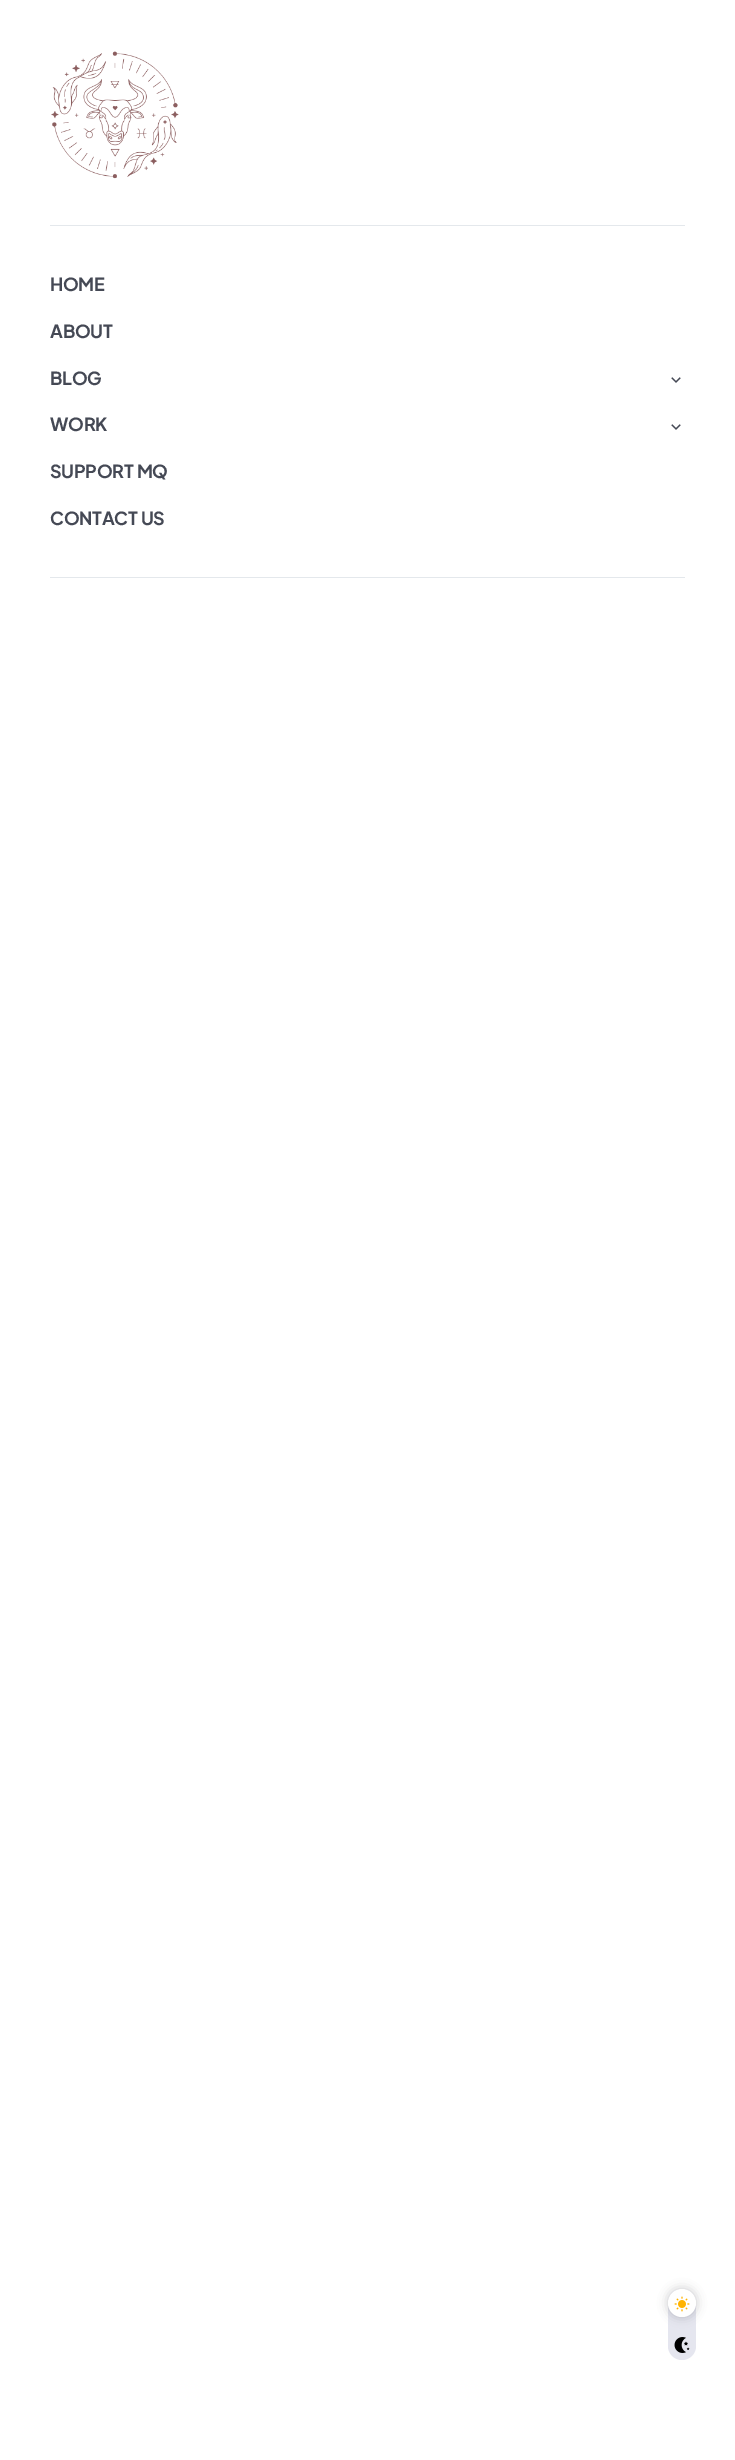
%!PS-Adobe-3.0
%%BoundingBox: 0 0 735 2460
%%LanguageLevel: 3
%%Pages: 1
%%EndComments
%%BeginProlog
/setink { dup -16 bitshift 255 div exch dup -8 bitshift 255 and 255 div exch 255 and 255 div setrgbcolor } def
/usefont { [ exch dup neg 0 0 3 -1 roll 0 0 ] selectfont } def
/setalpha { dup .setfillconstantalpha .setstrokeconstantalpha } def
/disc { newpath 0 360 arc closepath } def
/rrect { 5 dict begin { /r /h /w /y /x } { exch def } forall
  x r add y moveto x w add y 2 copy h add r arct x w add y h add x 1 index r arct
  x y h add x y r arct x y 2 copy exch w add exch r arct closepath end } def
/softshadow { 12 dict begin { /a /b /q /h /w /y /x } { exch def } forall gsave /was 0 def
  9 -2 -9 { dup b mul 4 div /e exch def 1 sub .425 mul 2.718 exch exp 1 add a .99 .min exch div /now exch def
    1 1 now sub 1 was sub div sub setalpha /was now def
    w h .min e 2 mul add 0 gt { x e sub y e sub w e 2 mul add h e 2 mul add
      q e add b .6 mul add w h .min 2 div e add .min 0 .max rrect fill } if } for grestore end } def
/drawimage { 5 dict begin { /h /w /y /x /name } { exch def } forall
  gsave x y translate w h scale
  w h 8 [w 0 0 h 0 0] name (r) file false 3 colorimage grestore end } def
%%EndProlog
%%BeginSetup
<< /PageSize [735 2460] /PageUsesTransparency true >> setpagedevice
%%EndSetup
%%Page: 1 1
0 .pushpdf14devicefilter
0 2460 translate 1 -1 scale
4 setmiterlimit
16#FFFFFF setink
0 0 735 2460 rectfill
(img1.raw) 51 51 128 128 drawimage
16#E4E8EC setink
50 225 635 1 rectfill
/PlusJakartaSans-Bold 18 usefont
16#454955 setink
50 291 moveto -0.25 0 (HOME) ashow
50 338 moveto -0.25 0 (ABOUT) ashow
50 385 moveto -0.25 0 (BLOG) ashow
(img2.raw) 671 377 10 6 drawimage
50 431 moveto -0.25 0 (WORK) ashow
(img2.raw) 671 424 10 6 drawimage
50 478 moveto -0.25 0 (SUPPORT MQ) ashow
50 525 moveto -0.25 0 (CONTACT US) ashow
16#E4E8EC setink
50 577 635 1 rectfill
16#E5E6EF setink
668 2289 28 71 14 rrect fill
16#2F3139 setink
668 2289 28 28 14 5 0.26 softshadow
16#FFFFFF setink
682 2303 14 disc fill
(img3.raw) 674 2296 16 16 drawimage
(img4.raw) 674 2337 16 16 drawimage
.poppdf14devicefilter showpage
%%EOF
